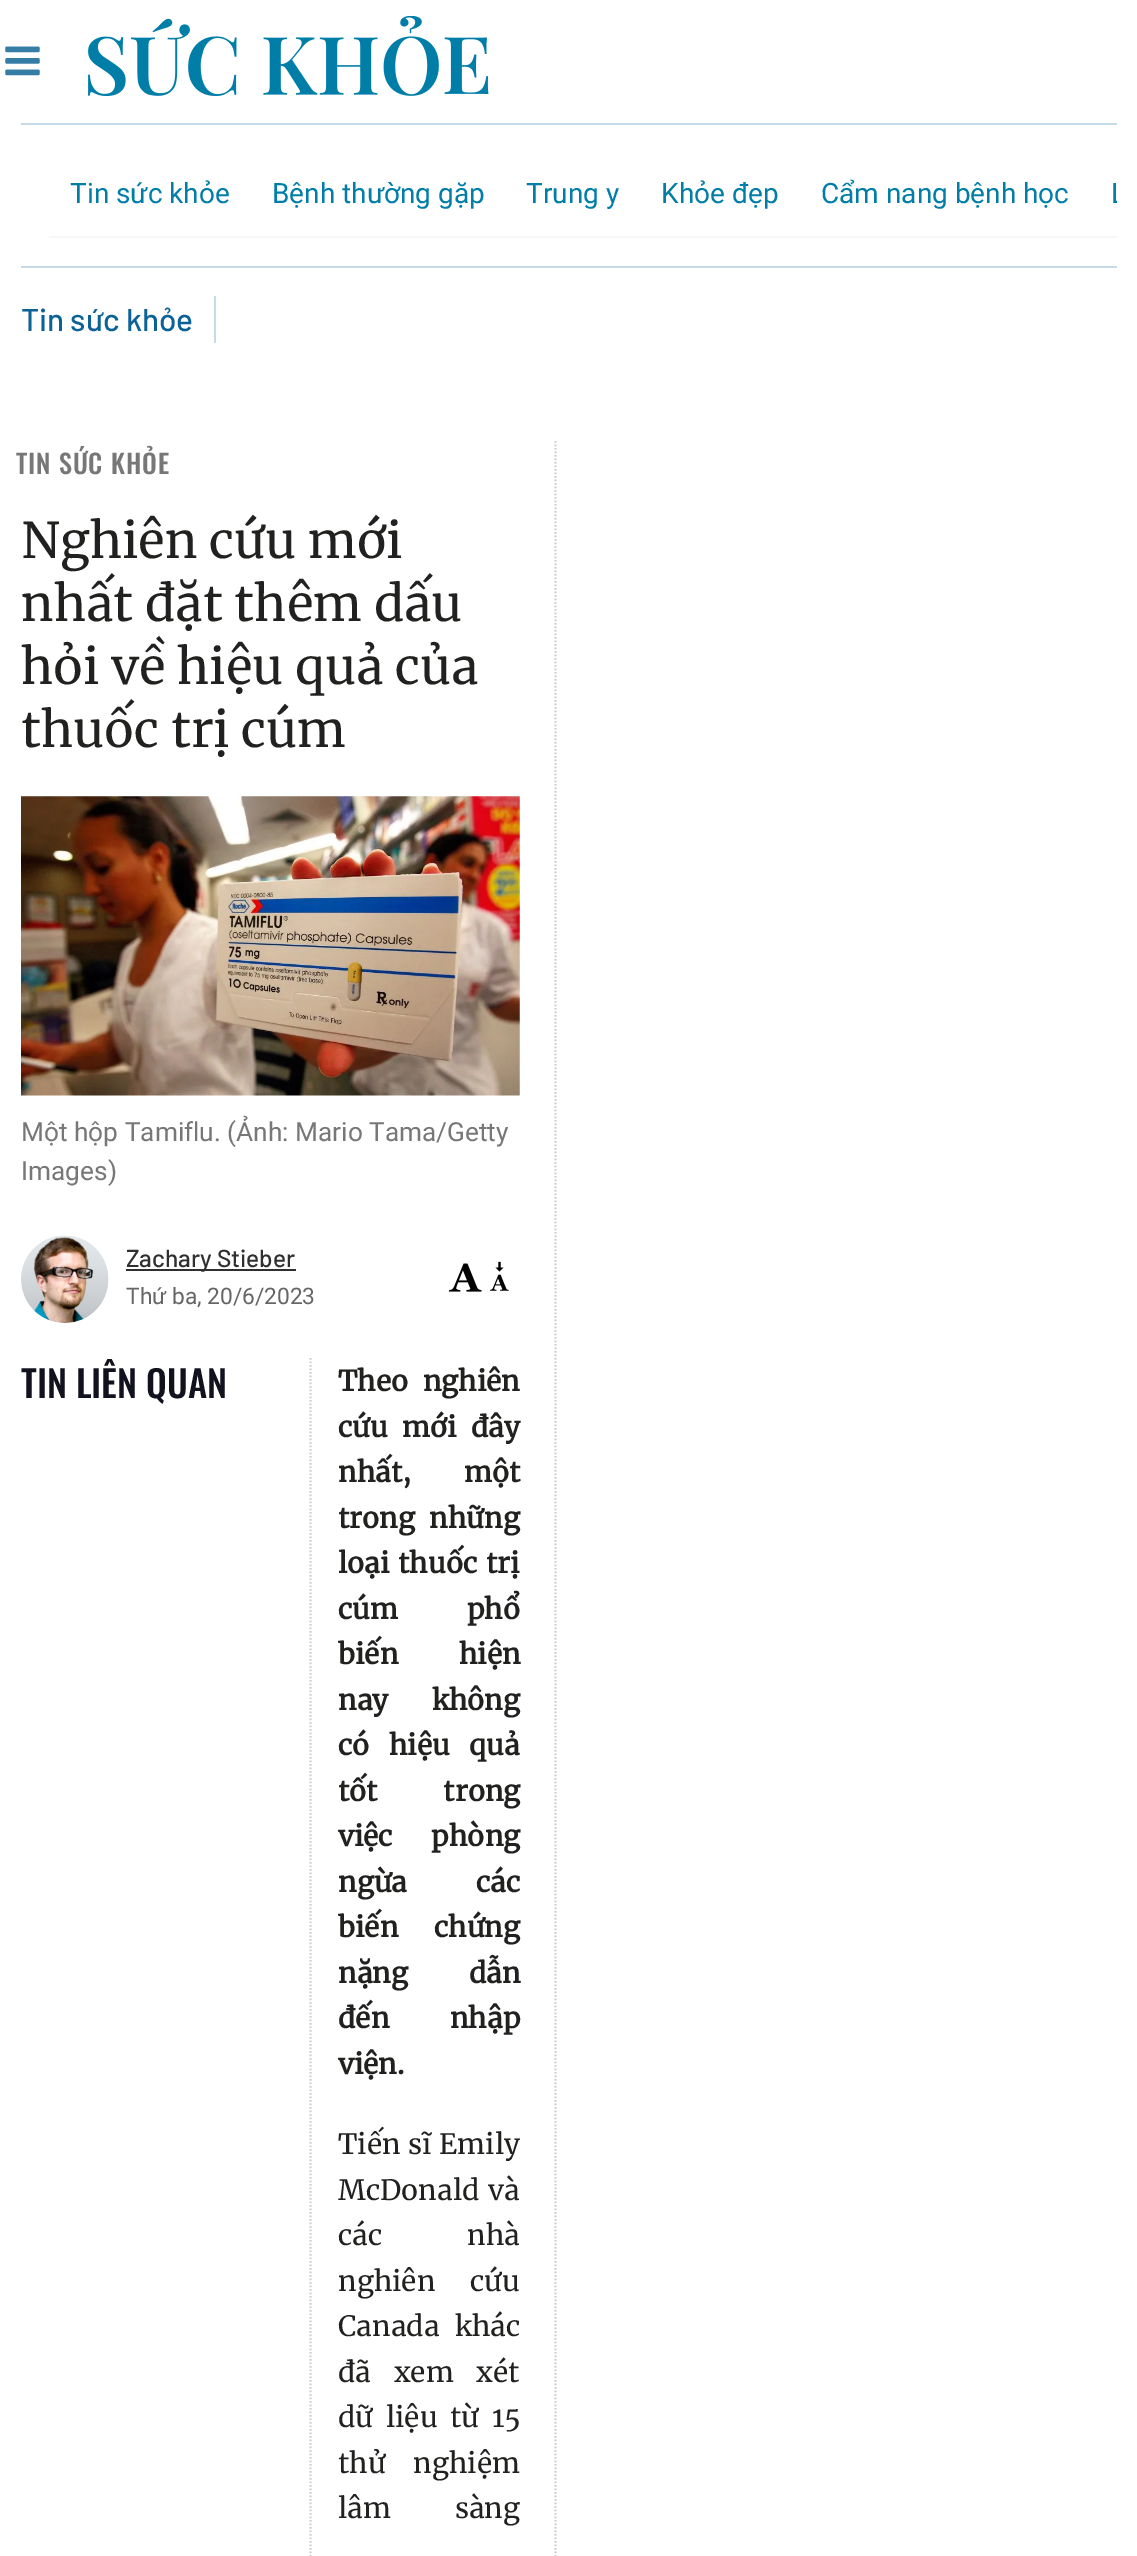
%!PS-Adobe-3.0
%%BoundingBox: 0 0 1137 2556
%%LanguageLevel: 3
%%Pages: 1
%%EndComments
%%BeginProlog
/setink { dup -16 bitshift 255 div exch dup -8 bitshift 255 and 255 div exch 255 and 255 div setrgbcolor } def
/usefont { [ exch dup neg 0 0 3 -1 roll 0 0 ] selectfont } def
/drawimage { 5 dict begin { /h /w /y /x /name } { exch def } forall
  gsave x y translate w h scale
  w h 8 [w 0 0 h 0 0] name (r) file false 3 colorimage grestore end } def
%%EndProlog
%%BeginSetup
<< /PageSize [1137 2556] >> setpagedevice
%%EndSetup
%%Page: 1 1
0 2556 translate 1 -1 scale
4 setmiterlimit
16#FFFFFF setink
0 0 1137 2556 rectfill
(img1.raw) 5 46 35 30 drawimage
(img2.raw) 88 16 401 80 drawimage
[
    [21 123 1096 2 16#C5DBE9]
    [21 266 1096 2 16#C5DBE9]
    [49 236 1068 2 16#F5F7FA]
] { aload pop setink rectfill } forall
/Roboto-Regular 28 usefont
16#007EA8 setink
[
    [(Tin sức khỏe) 70 203]
    [(Bệnh thường gặp) 272 203]
    [(Trung y) 526 203]
    [(Khỏe đẹp) 661 203]
    [(Cẩm nang bệnh học) 821 203]
] { aload pop moveto show } forall
gsave
21 124 1096 142 rectclip
1111 203 moveto (L) show
grestore
16#C5DBE9 setink
214 296 2 47 rectfill
/Barlow-Medium 31.5 usefont
16#0C6297 setink
21 331 moveto (Tin sức khỏe) show
16#CCCCCC setink
1.8 setlinewidth
[1.75 1.75] 0 setdash
555.5 441 moveto 555.5 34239 lineto stroke
/Oswald-Medium 26.25 usefont
16#777777 setink
16 474 moveto 0.9 0 (TIN SỨC KHỎE) ashow
/Merriweather-Regular 49 usefont
16#21211F setink
[
    [(Nghiên cứu mới) 21 558]
    [(nhất đặt thêm dấu) 21 621]
    [(hỏi về hiệu quả của) 21 684]
    [(thuốc trị cúm) 21 747]
] { aload pop moveto show } forall
(img3.raw) 21 796 499 300 drawimage
/Roboto-Regular 26.25 usefont
16#777777 setink
21 1141 moveto (Một hộp Tamiflu. \(Ảnh: Mario Tama/Getty) show
21 1180 moveto (Images\)) show
(img4.raw) 21 1235 88 88 drawimage
16#2F2F2F setink
126 1269 170 2 rectfill
/Barlow-Medium 24.5 usefont
126 1267 moveto (Zachary Stieber) show
/Roboto-Regular 22.75 usefont
16#666666 setink
126 1304 moveto (Thứ ba, 20/6/2023) show
(img5.raw) 448 1263 34 29 drawimage
(img6.raw) 490 1261 19 30 drawimage
/Oswald-Medium 36.75 usefont
16#12121F setink
21 1398 moveto (TIN LIÊN QUAN) show
16#CCCCCC setink
310.5 1358 moveto 310.5 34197 lineto stroke
/Merriweather-Bold 28 usefont
16#21211F setink
338 1391 moveto 8 0 32 (Theo nghiên) widthshow
338 1437 moveto 8 0 32 (cứu mới đây) widthshow
338 1482 moveto 46 0 32 (nhất, một) widthshow
338 1528 moveto 8 0 32 (trong những) widthshow
338 1573 moveto 2 0 32 (loại thuốc trị) widthshow
338 1619 moveto 62 0 32 (cúm phổ) widthshow
338 1664 moveto 54 0 32 (biến hiện) widthshow
338 1710 moveto 37 0 32 (nay không) widthshow
338 1755 moveto 13 0 32 (có hiệu quả) widthshow
338 1801 moveto 59 0 32 (tốt trong) widthshow
338 1846 moveto 32 0 32 (việc phòng) widthshow
338 1892 moveto 62 0 32 (ngừa các) widthshow
338 1937 moveto 29 0 32 (biến chứng) widthshow
338 1983 moveto 54 0 32 (nặng dẫn) widthshow
338 2028 moveto 54 0 32 (đến nhập) widthshow
338 2074 moveto (viện.) show
/Merriweather-Regular 28 usefont
338 2154 moveto 1 0 32 (Tiến sĩ Emily) widthshow
338 2200 moveto 2 0 32 (McDonald và) widthshow
338 2245 moveto 78 0 32 (các nhà) widthshow
338 2291 moveto 28 0 32 (nghiên cứu) widthshow
338 2336 moveto 9 0 32 (Canada khác) widthshow
338 2382 moveto 16 0 32 (đã xem xét) widthshow
338 2427 moveto 6 0 32 (dữ liệu từ 15) widthshow
338 2473 moveto 21 0 32 (thử nghiệm) widthshow
338 2518 moveto 57 0 32 (lâm sàng) widthshow
showpage
%%EOF
